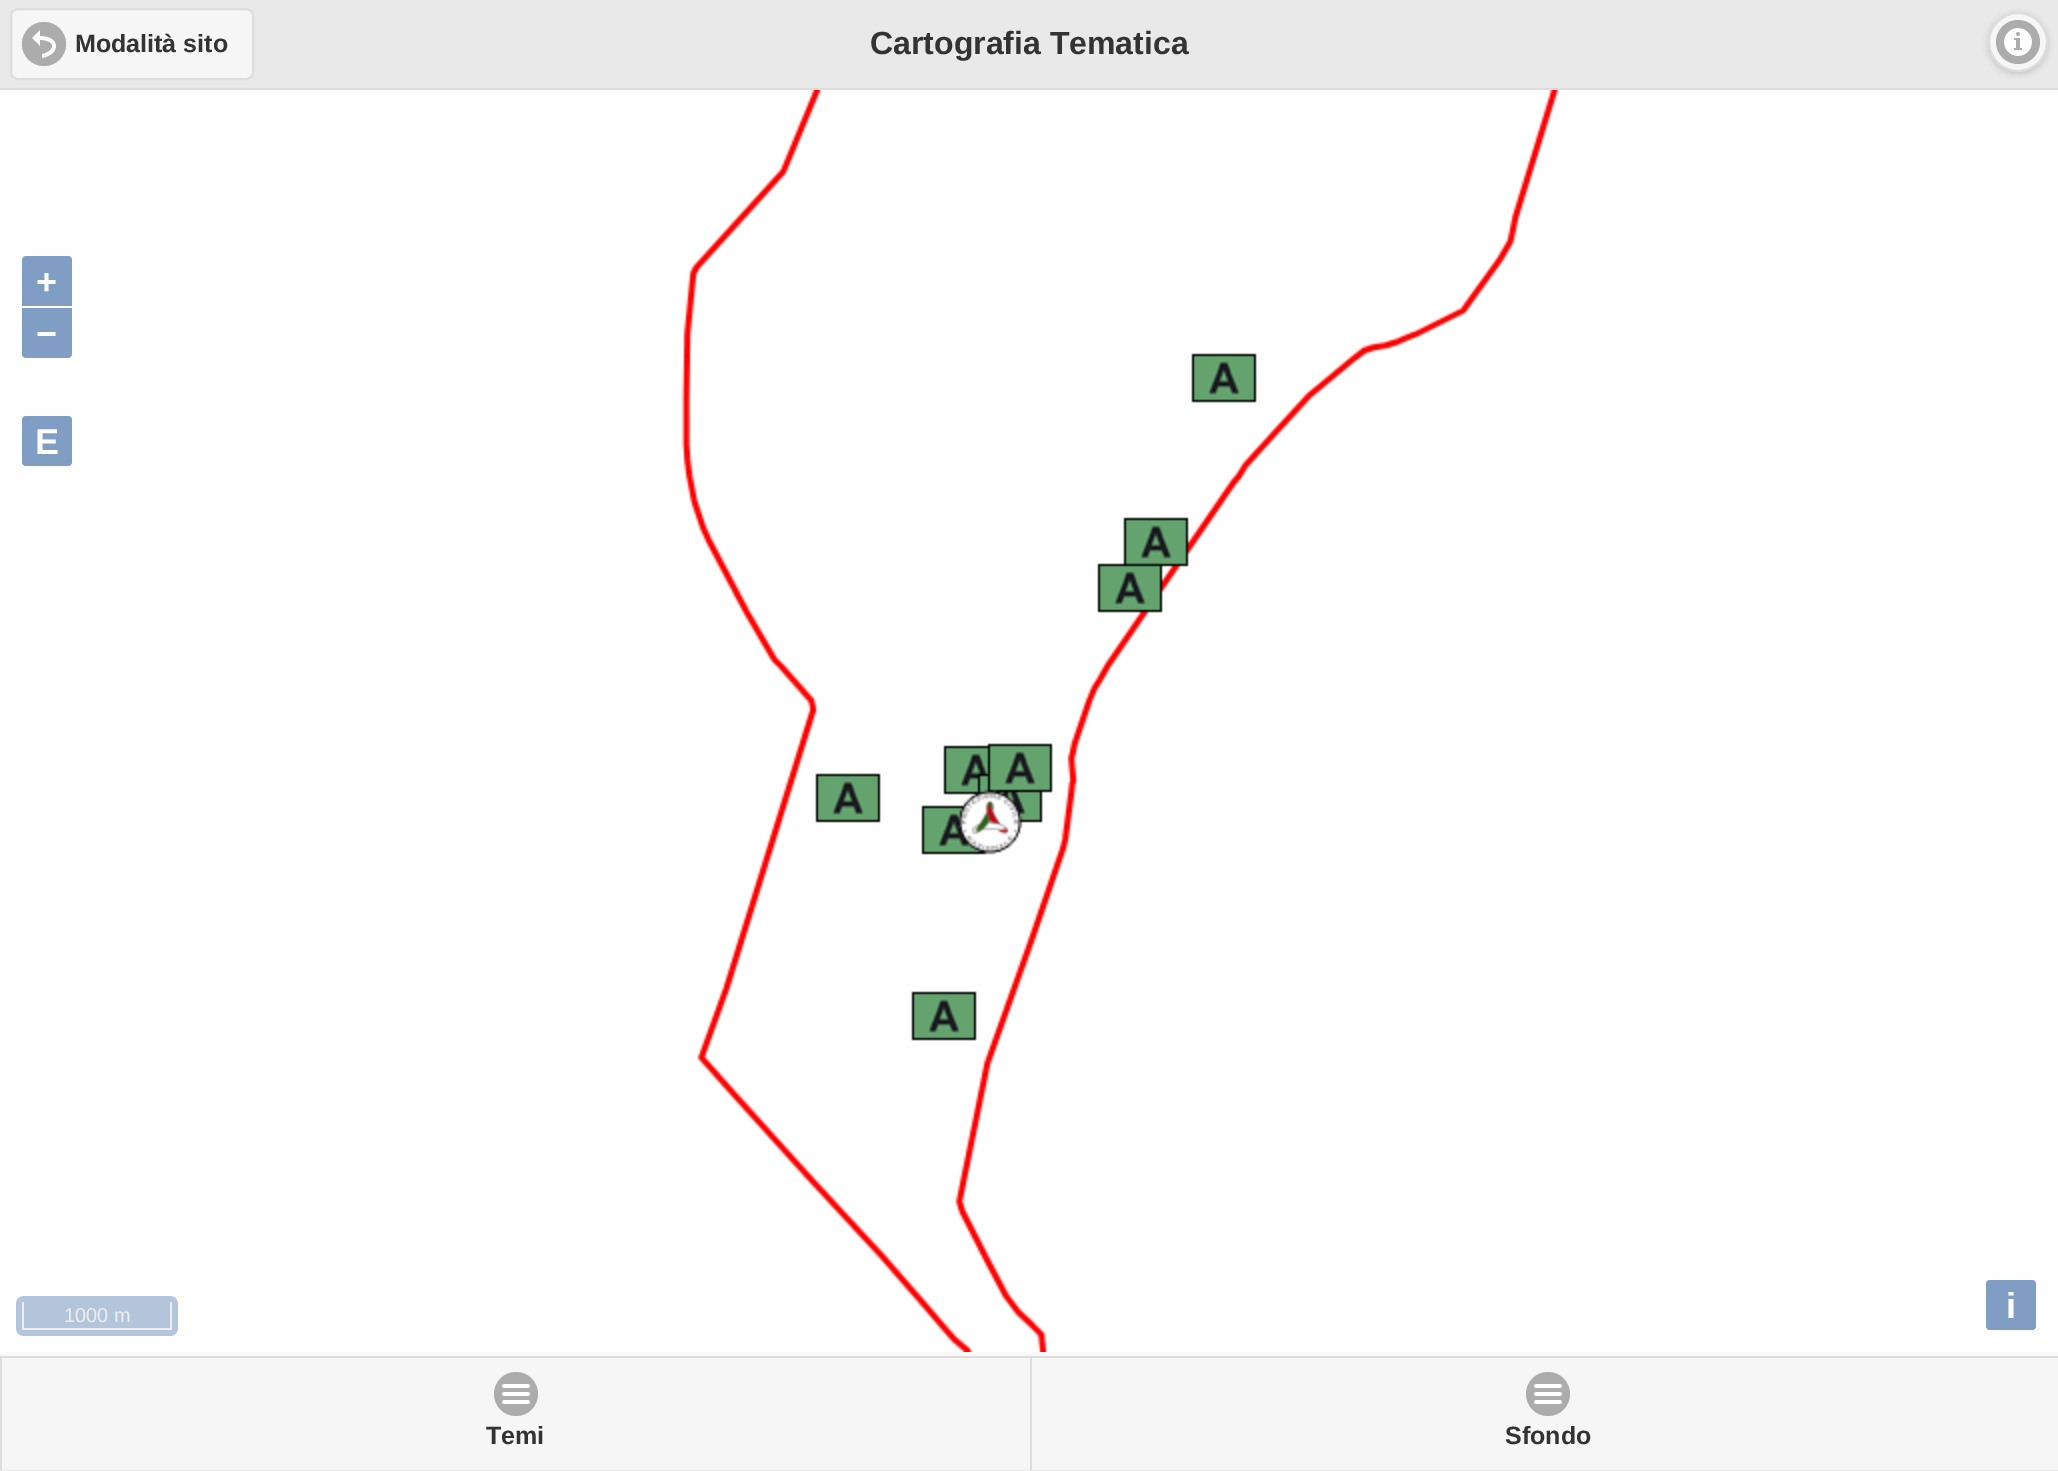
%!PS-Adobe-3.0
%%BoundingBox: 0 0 2058 1471
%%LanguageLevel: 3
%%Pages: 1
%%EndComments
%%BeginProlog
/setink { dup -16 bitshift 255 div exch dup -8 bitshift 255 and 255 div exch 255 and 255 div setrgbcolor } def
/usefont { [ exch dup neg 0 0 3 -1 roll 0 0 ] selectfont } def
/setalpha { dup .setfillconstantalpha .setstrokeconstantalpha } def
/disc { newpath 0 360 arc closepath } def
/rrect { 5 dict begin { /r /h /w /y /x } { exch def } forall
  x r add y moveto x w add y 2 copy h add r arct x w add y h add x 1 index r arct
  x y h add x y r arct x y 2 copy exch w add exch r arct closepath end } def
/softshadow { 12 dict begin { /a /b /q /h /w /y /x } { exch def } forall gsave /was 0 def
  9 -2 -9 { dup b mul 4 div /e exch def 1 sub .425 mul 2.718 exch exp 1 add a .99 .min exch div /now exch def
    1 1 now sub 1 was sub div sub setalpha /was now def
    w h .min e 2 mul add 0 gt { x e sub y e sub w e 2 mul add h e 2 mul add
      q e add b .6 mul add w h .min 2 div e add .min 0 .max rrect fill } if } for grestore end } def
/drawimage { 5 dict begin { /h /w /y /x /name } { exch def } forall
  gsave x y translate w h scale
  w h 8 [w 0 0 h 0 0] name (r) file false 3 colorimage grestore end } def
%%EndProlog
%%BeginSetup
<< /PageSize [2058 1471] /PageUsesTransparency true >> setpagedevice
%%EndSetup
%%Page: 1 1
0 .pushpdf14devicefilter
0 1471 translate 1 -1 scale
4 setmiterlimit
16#F9F9F9 setink
0 0 2058 1471 rectfill
16#E9E9E9 setink
0 0 2058 88 rectfill
16#DDDDDD setink
0 88 2058 2 rectfill
16#F6F6F6 setink
11 9 242 70 7 rrect gsave fill grestore
16#DDDDDD setink
2 setlinewidth
stroke
16#ACACAC setink
44 44 22 disc fill
(img1.raw) 32 30 24 28 drawimage
/LiberationSans-Bold 25 usefont
16#333333 setink
75 52 moveto (Modalità sito) show
/LiberationSans-Bold 32 usefont
870 54 moveto (Cartografia Tematica) show
16#000000 setink
1988 14 60 60 30 3 0.15 softshadow
16#F6F6F6 setink
2018 42 29 disc gsave fill grestore
16#DDDDDD setink
stroke
16#ACACAC setink
2018 42 22 disc fill
(img2.raw) 2004 28 28 28 drawimage
16#FFFFFF setink
0 90 2058 1262 rectfill
(img3.raw) 681 90 878 1262 drawimage
16#809EC4 setink
26 256 moveto 68 256 lineto 70 256 72 258 72 260 curveto 72 306 lineto 22 306 lineto 22 260 lineto 22 258 24 256 26 256 curveto closepath fill
/LiberationSans-Bold 36 usefont
16#FFFFFF setink
36 294 moveto (+) show
16#809EC4 setink
22 308 moveto 72 308 lineto 72 354 lineto 72 356 70 358 68 358 curveto 26 358 lineto 24 358 22 356 22 354 curveto closepath fill
16#FFFFFF setink
36 346 moveto (−) show
16#809EC4 setink
22 416 50 50 4 rrect fill
16#FFFFFF setink
35 454 moveto (E) show
16#B3C5DB setink
16 1296 162 40 8 rrect fill
[
    [170 1302 2 28 16#EEEEEE]
    [22 1328 150 2 16#EEEEEE]
    [22 1302 2 28 16#EEEEEE]
] { aload pop setink rectfill } forall
/LiberationSans-Regular 20 usefont
64 1322 moveto (1000 m) show
16#809EC4 setink
1986 1280 50 50 4 rrect fill
/LiberationSans-Bold 36 usefont
16#FFFFFF setink
2006 1318 moveto (i) show
[
    [0 1470 2058 1 16#E9E9E9]
    [0 1356 2058 2 16#DDDDDD]
    [2 1358 1028 112 16#F6F6F6]
    [0 1358 2 112 16#DDDDDD]
] { aload pop setink rectfill } forall
16#ACACAC setink
516 1394 22 disc fill
(img4.raw) 502 1384 28 20 drawimage
/LiberationSans-Bold 25 usefont
16#333333 setink
486 1444 moveto (Temi) show
16#F6F6F6 setink
1032 1358 1026 112 rectfill
16#DDDDDD setink
1030 1358 2 112 rectfill
16#ACACAC setink
1548 1394 22 disc fill
(img4.raw) 1534 1384 28 20 drawimage
16#333333 setink
1505 1444 moveto (Sfondo) show
.poppdf14devicefilter showpage
%%EOF
